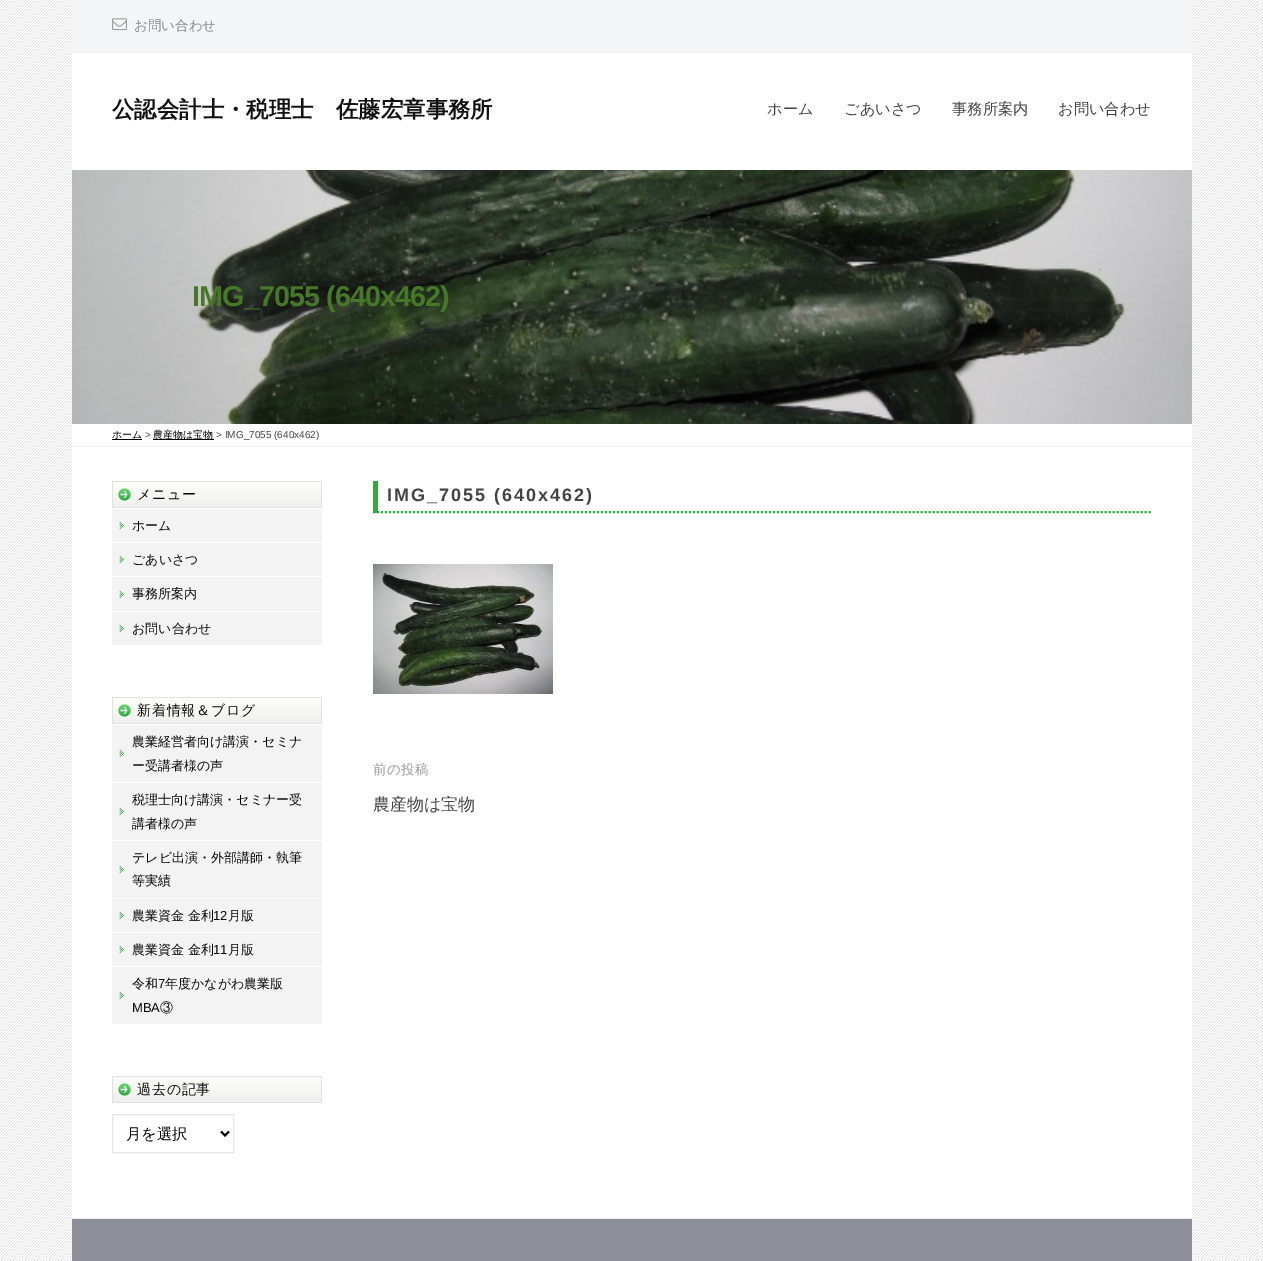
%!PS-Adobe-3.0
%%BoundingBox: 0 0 1263 1261
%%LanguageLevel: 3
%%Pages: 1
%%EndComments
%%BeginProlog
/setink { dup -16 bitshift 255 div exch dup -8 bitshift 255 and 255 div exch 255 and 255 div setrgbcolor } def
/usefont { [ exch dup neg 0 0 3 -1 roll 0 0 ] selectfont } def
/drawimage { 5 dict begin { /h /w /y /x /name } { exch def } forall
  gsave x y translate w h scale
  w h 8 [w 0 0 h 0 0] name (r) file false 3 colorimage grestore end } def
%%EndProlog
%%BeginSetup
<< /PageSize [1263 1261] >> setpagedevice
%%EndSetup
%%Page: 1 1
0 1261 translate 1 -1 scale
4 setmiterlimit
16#FFFFFF setink
0 0 1263 1261 rectfill
(img1.raw) 0 0 1263 1261 drawimage
[
    [72 53 1120 393 16#FFFFFF]
    [72 446 1120 1 16#EEEEEE]
    [72 0 1120 52 16#F4F5F6]
    [72 52 1120 1 16#EEEEEE]
] { aload pop setink rectfill } forall
(img2.raw) 112 18 15 13 drawimage
/WenQuanYiZenHei-Medium 13.5 usefont
16#888888 setink
134 30 moveto (お問い合わせ) show
/WenQuanYiZenHei-Bold 22.4 usefont
16#111111 setink
112 117 moveto (公認会計士・税理士　佐藤宏章事務所) show
/WenQuanYiZenHei-Medium 15.25 usefont
16#444444 setink
[
    [(ホーム) 767 114]
    [(ごあいさつ) 844 114]
    [(事務所案内) 952 114]
    [(お問い合わせ) 1058 114]
] { aload pop moveto show } forall
(img3.raw) 72 170 1120 254 drawimage
/LiberationSans-Bold 28.75 usefont
16#467827 setink
192 306 moveto -0.9 0 (IMG_7055 \(640x462\)) ashow
/WenQuanYiZenHei-Medium 10 usefont
16#000000 setink
112 438 moveto (ホーム) show
112 439 30 1 rectfill
/LiberationSans-Regular 10 usefont
16#444444 setink
145 438 moveto (>) show
16#000000 setink
153 439 61 1 rectfill
/WenQuanYiZenHei-Medium 10 usefont
153 438 moveto (農産物は宝物) show
/LiberationSans-Regular 10 usefont
16#444444 setink
216 438 moveto (> IMG_7055 \(640x462\)) show
16#FFFFFF setink
72 447 1120 771 rectfill
(img4.raw) 112 481 210 27 drawimage
/WenQuanYiZenHei-Medium 14 usefont
16#080808 setink
137 499 moveto 0.75 0 (メニュー) ashow
16#F4F3F3 setink
112 509 210 136 rectfill
(img5.raw) 119 522 5 7 drawimage
16#FFFFFF setink
112 542 210 1 rectfill
/WenQuanYiZenHei-Medium 13 usefont
16#080808 setink
132 530 moveto (ホーム) show
(img5.raw) 119 556 5 7 drawimage
16#FFFFFF setink
112 576 210 1 rectfill
16#080808 setink
132 564 moveto (ごあいさつ) show
(img5.raw) 119 591 5 7 drawimage
16#FFFFFF setink
112 611 210 1 rectfill
16#080808 setink
132 598 moveto (事務所案内) show
(img5.raw) 119 625 5 7 drawimage
132 633 moveto (お問い合わせ) show
(img4.raw) 112 697 210 27 drawimage
/WenQuanYiZenHei-Medium 14 usefont
137 715 moveto 0.75 0 (新着情報＆ブログ) ashow
16#F4F3F3 setink
112 725 210 299 rectfill
(img5.raw) 119 750 5 7 drawimage
16#FFFFFF setink
112 782 210 1 rectfill
/WenQuanYiZenHei-Medium 13 usefont
16#080808 setink
132 746 moveto (農業経営者向け講演・セミナ) show
132 770 moveto (ー受講者様の声) show
(img5.raw) 119 808 5 7 drawimage
16#FFFFFF setink
112 840 210 1 rectfill
16#080808 setink
132 804 moveto (税理士向け講演・セミナー受) show
132 828 moveto (講者様の声) show
(img5.raw) 119 866 5 7 drawimage
16#FFFFFF setink
112 898 210 1 rectfill
16#080808 setink
132 862 moveto (テレビ出演・外部講師・執筆) show
132 885 moveto (等実績) show
(img5.raw) 119 912 5 7 drawimage
16#FFFFFF setink
112 932 210 1 rectfill
16#080808 setink
132 920 moveto (農業資金 金利) show
/LiberationSans-Regular 13 usefont
213 920 moveto (12) show
/WenQuanYiZenHei-Medium 13 usefont
228 920 moveto (月版) show
(img5.raw) 119 946 5 7 drawimage
16#FFFFFF setink
112 966 210 1 rectfill
16#080808 setink
132 954 moveto (農業資金 金利) show
/LiberationSans-Regular 13 usefont
213 954 moveto (11) show
/WenQuanYiZenHei-Medium 13 usefont
228 954 moveto (月版) show
(img5.raw) 119 992 5 7 drawimage
132 988 moveto (令和) show
/LiberationSans-Regular 13 usefont
158 988 moveto (7) show
/WenQuanYiZenHei-Medium 13 usefont
165 988 moveto (年度かながわ農業版) show
/LiberationSans-Regular 13 usefont
132 1012 moveto (MBA) show
/WenQuanYiZenHei-Medium 13 usefont
160 1012 moveto (③) show
(img4.raw) 112 1076 210 27 drawimage
/WenQuanYiZenHei-Medium 14 usefont
137 1094 moveto 0.75 0 (過去の記事) ashow
16#E6E6E6 setink
112.5 1114.5 121 38 rectstroke
16#000000 setink
2 setlinewidth
221 1131.5 moveto 225 1135.5 lineto 229 1131.5 lineto stroke
/WenQuanYiZenHei-Medium 15.25 usefont
126 1139 moveto (月を選択) show
16#31AA40 setink
[2 2] 0 setdash
373 512 moveto 1152 512 lineto stroke
373 481 5 32 rectfill
/LiberationSans-Bold 18 usefont
16#444444 setink
387 501 moveto 2 0 (IMG_7055 \(640x462\)) ashow
(img6.raw) 373 564 180 130 drawimage
/WenQuanYiZenHei-Medium 13.5 usefont
16#999999 setink
373 774 moveto 0.5 0 (前の投稿) ashow
/WenQuanYiZenHei-Medium 17 usefont
16#444444 setink
373 810 moveto (農産物は宝物) show
16#8C8F9A setink
72 1219 1120 42 rectfill
16#EEEEEE setink
72 1218 1120 1 rectfill
showpage
%%EOF
